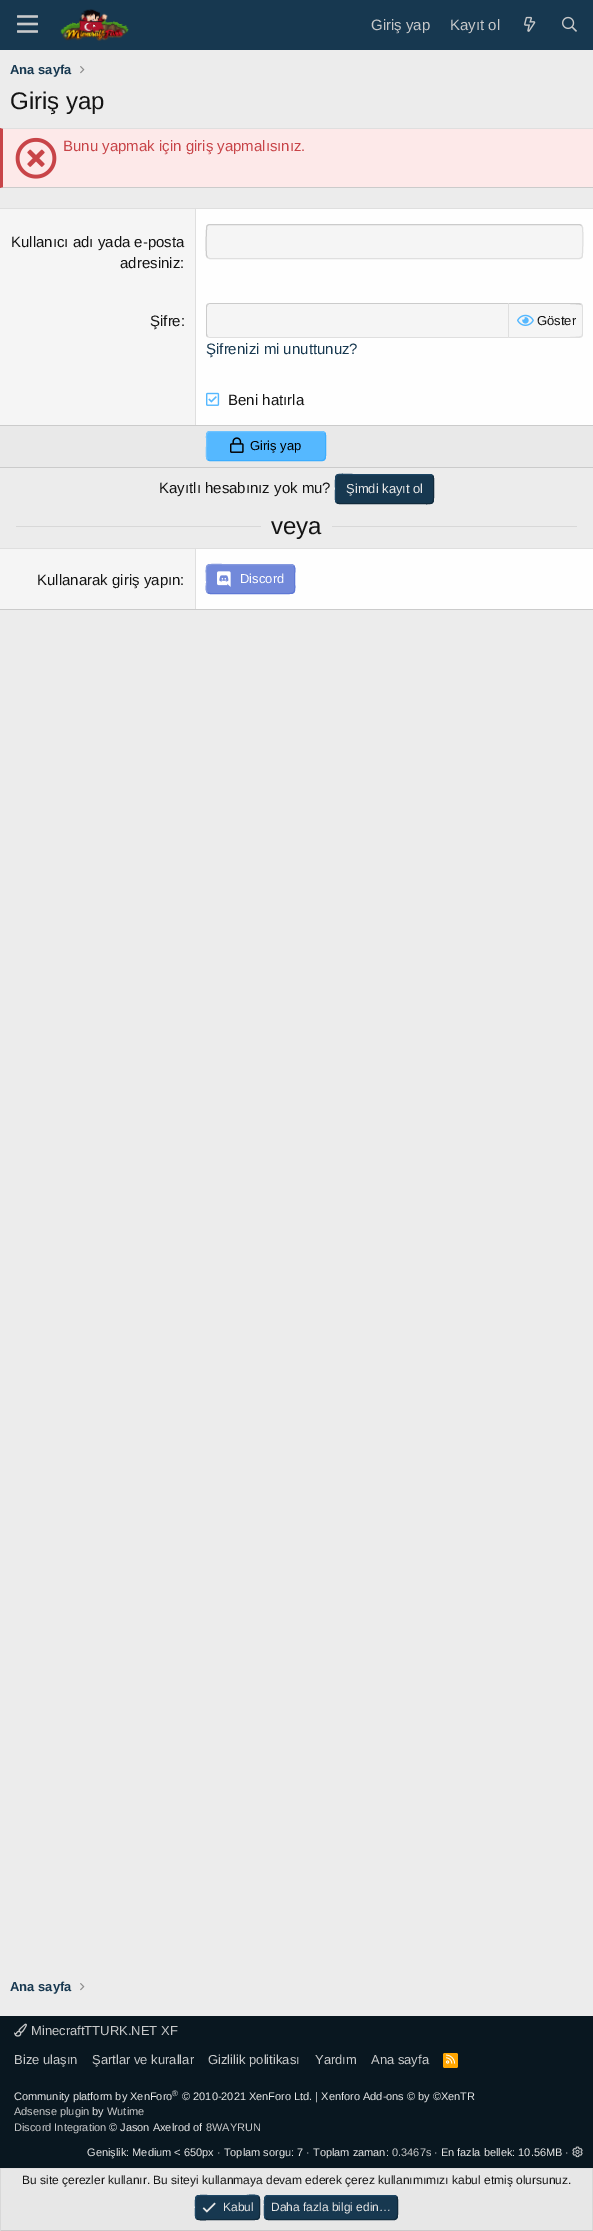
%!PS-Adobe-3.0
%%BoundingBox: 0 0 593 2231
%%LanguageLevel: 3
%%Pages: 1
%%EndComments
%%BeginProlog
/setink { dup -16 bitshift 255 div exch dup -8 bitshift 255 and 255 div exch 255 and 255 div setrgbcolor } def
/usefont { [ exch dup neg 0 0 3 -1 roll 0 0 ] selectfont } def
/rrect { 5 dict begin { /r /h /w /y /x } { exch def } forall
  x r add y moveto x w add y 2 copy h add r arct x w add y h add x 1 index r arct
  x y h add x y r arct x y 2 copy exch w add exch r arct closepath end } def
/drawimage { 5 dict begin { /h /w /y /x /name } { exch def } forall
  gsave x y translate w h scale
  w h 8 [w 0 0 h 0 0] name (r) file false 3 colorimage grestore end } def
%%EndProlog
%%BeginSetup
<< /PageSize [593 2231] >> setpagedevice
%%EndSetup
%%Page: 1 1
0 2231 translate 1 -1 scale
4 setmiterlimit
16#ECECEC setink
0 0 593 2231 rectfill
16#173850 setink
0 0 593 50 rectfill
(img1.raw) 17 15 21 18 drawimage
(img2.raw) 60 9 69 32 drawimage
/LiberationSans-Regular 15 usefont
16#C8C9CA setink
371 30 moveto (Giriş yap) show
450 30 moveto (Kayıt ol) show
(img3.raw) 524 16 12 16 drawimage
(img4.raw) 562 16 15 16 drawimage
/LiberationSans-Bold 13 usefont
16#173850 setink
10 74 moveto (Ana sayfa) show
(img5.raw) 80 66 5 8 drawimage
/LiberationSans-Regular 24 usefont
16#141414 setink
10 109 moveto (Giriş yap) show
16#FDE9E9 setink
0 128 593 60 rectfill
16#DFDFDF setink
0 128 moveto 593 128 lineto 593 129 lineto 3 129 lineto closepath fill
16#CBCBCB setink
593 188 moveto 0 188 lineto 3 187 lineto 593 187 lineto closepath fill
16#C84448 setink
0 188 moveto 0 128 lineto 3 129 lineto 3 187 lineto closepath fill
(img6.raw) 15 137 42 42 drawimage
/LiberationSans-Regular 15 usefont
63 151 moveto (Bunu yapmak için giriş yapmalısınız.) show
[
    [196 209 397 216 16#FEFEFE]
    [0 208 593 1 16#DFDFDF]
    [0 467 593 1 16#CBCBCB]
    [0 209 195 216 16#F5F5F5]
    [195 209 1 216 16#DFDFDF]
] { aload pop setink rectfill } forall
16#141414 setink
11 247 moveto (Kullanıcı adı yada e-posta) show
120 268 moveto (adresiniz:) show
16#F5F5F5 setink
206 224 377 35 4 rrect fill
16#DFDFDF setink
581.5 225.5 moveto 582.5 227.5 lineto 583 230 583 255.5 582 257 curveto 581.5 258 580 258.5 579 258.5 curveto 209.5 258.5 lineto 207.5 257.5 lineto stroke
16#CBCBCB setink
207.5 257.5 moveto 206.5 255.5 lineto 206 253 206 227.5 207 226 curveto 207.5 225 209 224.5 210 224.5 curveto 579.5 224.5 lineto 581.5 225.5 lineto stroke
16#141414 setink
150 326 moveto (Şifre:) show
16#F5F5F5 setink
210 303 moveto 508 303 lineto 508 338 lineto 210 338 lineto 208 338 206 336 206 334 curveto 206 307 lineto 206 305 208 303 210 303 curveto closepath fill
16#CBCBCB setink
210 303 moveto 207 304 lineto 208 305 lineto 209 304 lineto 508 304 lineto 508 303 lineto closepath fill
16#DFDFDF setink
508 338 moveto 508 337 lineto 209 337 lineto 208 336 lineto 207 337 lineto 210 338 lineto closepath fill
16#CBCBCB setink
206 307 moveto 206 334 lineto 206 335 206.5 336 207 337 curveto 208 336 lineto 207 336 207 335 207 334 curveto 207 307 lineto 207 306 207 305 208 305 curveto 207 304 lineto 206.5 305 206 306 206 307 curveto closepath fill
16#F5F5F5 setink
508 303 moveto 579 303 lineto 581 303 583 305 583 307 curveto 583 334 lineto 583 336 581 338 579 338 curveto 508 338 lineto closepath fill
16#CBCBCB setink
508 303 moveto 509 304 lineto 517 304 580 303 581 305 curveto 582 304 lineto 579 303 lineto closepath fill
16#DFDFDF setink
583 334 moveto 583 307 lineto 583 306 582.5 305 582 304 curveto 581 305 lineto 582 305 582 306 582 307 curveto 582 334 lineto 582 335 582 336 581 336 curveto 582 337 lineto 582.5 336 583 335 583 334 curveto closepath fill
579 338 moveto 582 337 lineto 581 336 lineto 580 338 517 337 509 337 curveto 508 338 lineto closepath fill
508 303 moveto 508 338 lineto 509 337 lineto 509 304 lineto closepath fill
(img7.raw) 517 314 17 12 drawimage
/LiberationSans-Regular 13 usefont
16#141414 setink
537 325 moveto (Göster) show
/LiberationSans-Regular 15 usefont
16#173850 setink
206 354 moveto (Şifrenizi mi unuttunuz?) show
(img8.raw) 206 392 14 14 drawimage
16#141414 setink
228 405 moveto (Beni hatırla) show
16#E9E9E9 setink
0 426 593 41 rectfill
16#CBCBCB setink
0 425 593 1 rectfill
16#55B8FF setink
206 431 120 30 4 rrect fill
16#3BADFF setink
324.5 432.5 moveto 326.5 434.5 325.5 443 325.5 446 curveto 325.5 453.5 lineto 325.5 456 326 460.5 322 460.5 curveto 209.5 460.5 lineto 207.5 459.5 lineto stroke
16#6FC3FF setink
207.5 459.5 moveto 205.5 457.5 206.5 449 206.5 446 curveto 206.5 438.5 lineto 206.5 436 206 431.5 210 431.5 curveto 322.5 431.5 lineto 324.5 432.5 lineto stroke
(img9.raw) 230 437 14 16 drawimage
/LiberationSans-Regular 13 usefont
16#000000 setink
250 450 moveto (Giriş yap) show
/LiberationSans-Regular 15 usefont
16#141414 setink
159 493 moveto (Kayıtlı hesabınız yok mu?) show
16#173850 setink
335 474 99 30 4 rrect fill
16#112A3C setink
432.5 475.5 moveto 434.5 477.5 433.5 486 433.5 489 curveto 433.5 507 435.5 503.5 415 503.5 curveto 339 503.5 lineto 336.5 502.5 lineto stroke
16#1D4664 setink
336.5 502.5 moveto 334.5 500.5 335.5 492 335.5 489 curveto 335.5 471 333.5 474.5 354 474.5 curveto 430 474.5 lineto 432.5 475.5 lineto stroke
/LiberationSans-Regular 13 usefont
16#E7E7E7 setink
346 493 moveto (Şimdi kayıt ol) show
16#D8D8D8 setink
16 526 245 1 rectfill
/LiberationSans-Regular 24 usefont
16#141414 setink
271 534 moveto (veya) show
[
    [332 526 245 1 16#D8D8D8]
    [196 549 397 60 16#FEFEFE]
    [0 548 593 1 16#DFDFDF]
    [0 609 593 1 16#CBCBCB]
    [0 549 195 60 16#F5F5F5]
    [195 549 1 60 16#DFDFDF]
] { aload pop setink rectfill } forall
/LiberationSans-Regular 15 usefont
16#141414 setink
37 585 moveto (Kullanarak giriş yapın:) show
16#7289DA setink
206 564 89 30 4 rrect fill
16#5E78D5 setink
293.5 565.5 moveto 296 568 294.5 572.5 294.5 575.5 curveto 294.5 596 298.5 593.5 277.5 593.5 curveto 210 593.5 lineto 207.5 592.5 lineto stroke
16#869ADF setink
207.5 592.5 moveto 205 590 206.5 585.5 206.5 582.5 curveto 206.5 562 202.5 564.5 223.5 564.5 curveto 291 564.5 lineto 293.5 565.5 lineto stroke
(img10.raw) 217 571 14 16 drawimage
/LiberationSans-Regular 13 usefont
16#FFFFFF setink
240 583 moveto (Discord) show
/LiberationSans-Bold 13 usefont
16#173850 setink
10 1991 moveto (Ana sayfa) show
(img5.raw) 80 1983 5 8 drawimage
16#091720 setink
0 2016 593 152 rectfill
(img11.raw) 14 2023 13 14 drawimage
/LiberationSans-Regular 13 usefont
16#C8C9CA setink
[
    [(MinecraftTTURK.NET XF) 31 2035]
    [(Bize ulaşın) 14 2064]
    [(Şartlar ve kurallar) 92 2064]
    [(Gizlilik politikası) 208 2064]
    [(Yardım) 315 2064]
    [(Ana sayfa) 371 2064]
] { aload pop moveto show } forall
16#FFA500 setink
443 2053 15 15 2 rrect fill
(img12.raw) 446 2054 10 10 drawimage
/LiberationSans-Regular 11 usefont
16#E7E7E7 setink
14 2100 moveto (Community platform by XenForo) show
/LiberationSans-Regular 8 usefont
172 2096 moveto (®) show
/LiberationSans-Regular 11 usefont
182 2100 moveto (© 2010-2021 XenForo Ltd. | Xenforo Add-ons © by ©XenTR) show
16#C8C9CA setink
14 2115 moveto (Adsense plugin) show
16#E7E7E7 setink
92 2115 moveto (by) show
16#C8C9CA setink
107 2115 moveto (Wutime) show
14 2131 moveto (Discord Integration) show
16#E7E7E7 setink
109 2131 moveto (© Jason Axelrod of) show
16#C8C9CA setink
206 2131 moveto (8WAYRUN) show
16#E7E7E7 setink
87 2156 moveto (Genişlik: Medium < 650px · Toplam sorgu: 7 · Toplam zaman:) show
16#C8C9CA setink
392 2156 moveto (0.3467s) show
16#E7E7E7 setink
434 2156 moveto (· En fazla bellek: 10.56MB ·) show
(img13.raw) 572 2146 11 12 drawimage
[
    [1 2169 591 61 16#E7E7E7]
    [0 2168 593 1 16#DFDFDF]
    [592 2168 1 63 16#D8D8D8]
    [0 2230 593 1 16#CBCBCB]
    [0 2168 1 63 16#D8D8D8]
] { aload pop setink rectfill } forall
/LiberationSans-Regular 12 usefont
16#141414 setink
22 2184 moveto (Bu site çerezler kullanır. Bu siteyi kullanmaya devam ederek çerez kullanımımızı kabul etmiş olursunuz.) show
16#173850 setink
195 2195 65 25 4 rrect fill
16#112A3C setink
258.5 2196.5 moveto 260.5 2199 259.5 2205 259.5 2207.5 curveto 259.5 2221 261 2219.5 246.5 2219.5 curveto 208.5 2219.5 lineto 208 2219.5 199 2221 196.5 2218.5 curveto stroke
16#1D4664 setink
196.5 2218.5 moveto 194.5 2216 195.5 2210 195.5 2207.5 curveto 195.5 2194 194 2195.5 208.5 2195.5 curveto 246.5 2195.5 lineto 247 2195.5 256 2194 258.5 2196.5 curveto stroke
(img14.raw) 202 2202 14 11 drawimage
16#E7E7E7 setink
223 2211 moveto (Kabul) show
16#173850 setink
264 2195 134 25 4 rrect fill
16#112A3C setink
396.5 2196.5 moveto 398.5 2199 397.5 2207.5 397.5 2210.5 curveto 397.5 2213 398.5 2219.5 394 2219.5 curveto 268 2219.5 lineto 265.5 2218.5 lineto stroke
16#1D4664 setink
265.5 2218.5 moveto 263.5 2216 264.5 2207.5 264.5 2204.5 curveto 264.5 2202 263.5 2195.5 268 2195.5 curveto 394 2195.5 lineto 396.5 2196.5 lineto stroke
16#E7E7E7 setink
271 2211 moveto (Daha fazla bilgi edin…) show
showpage
%%EOF
